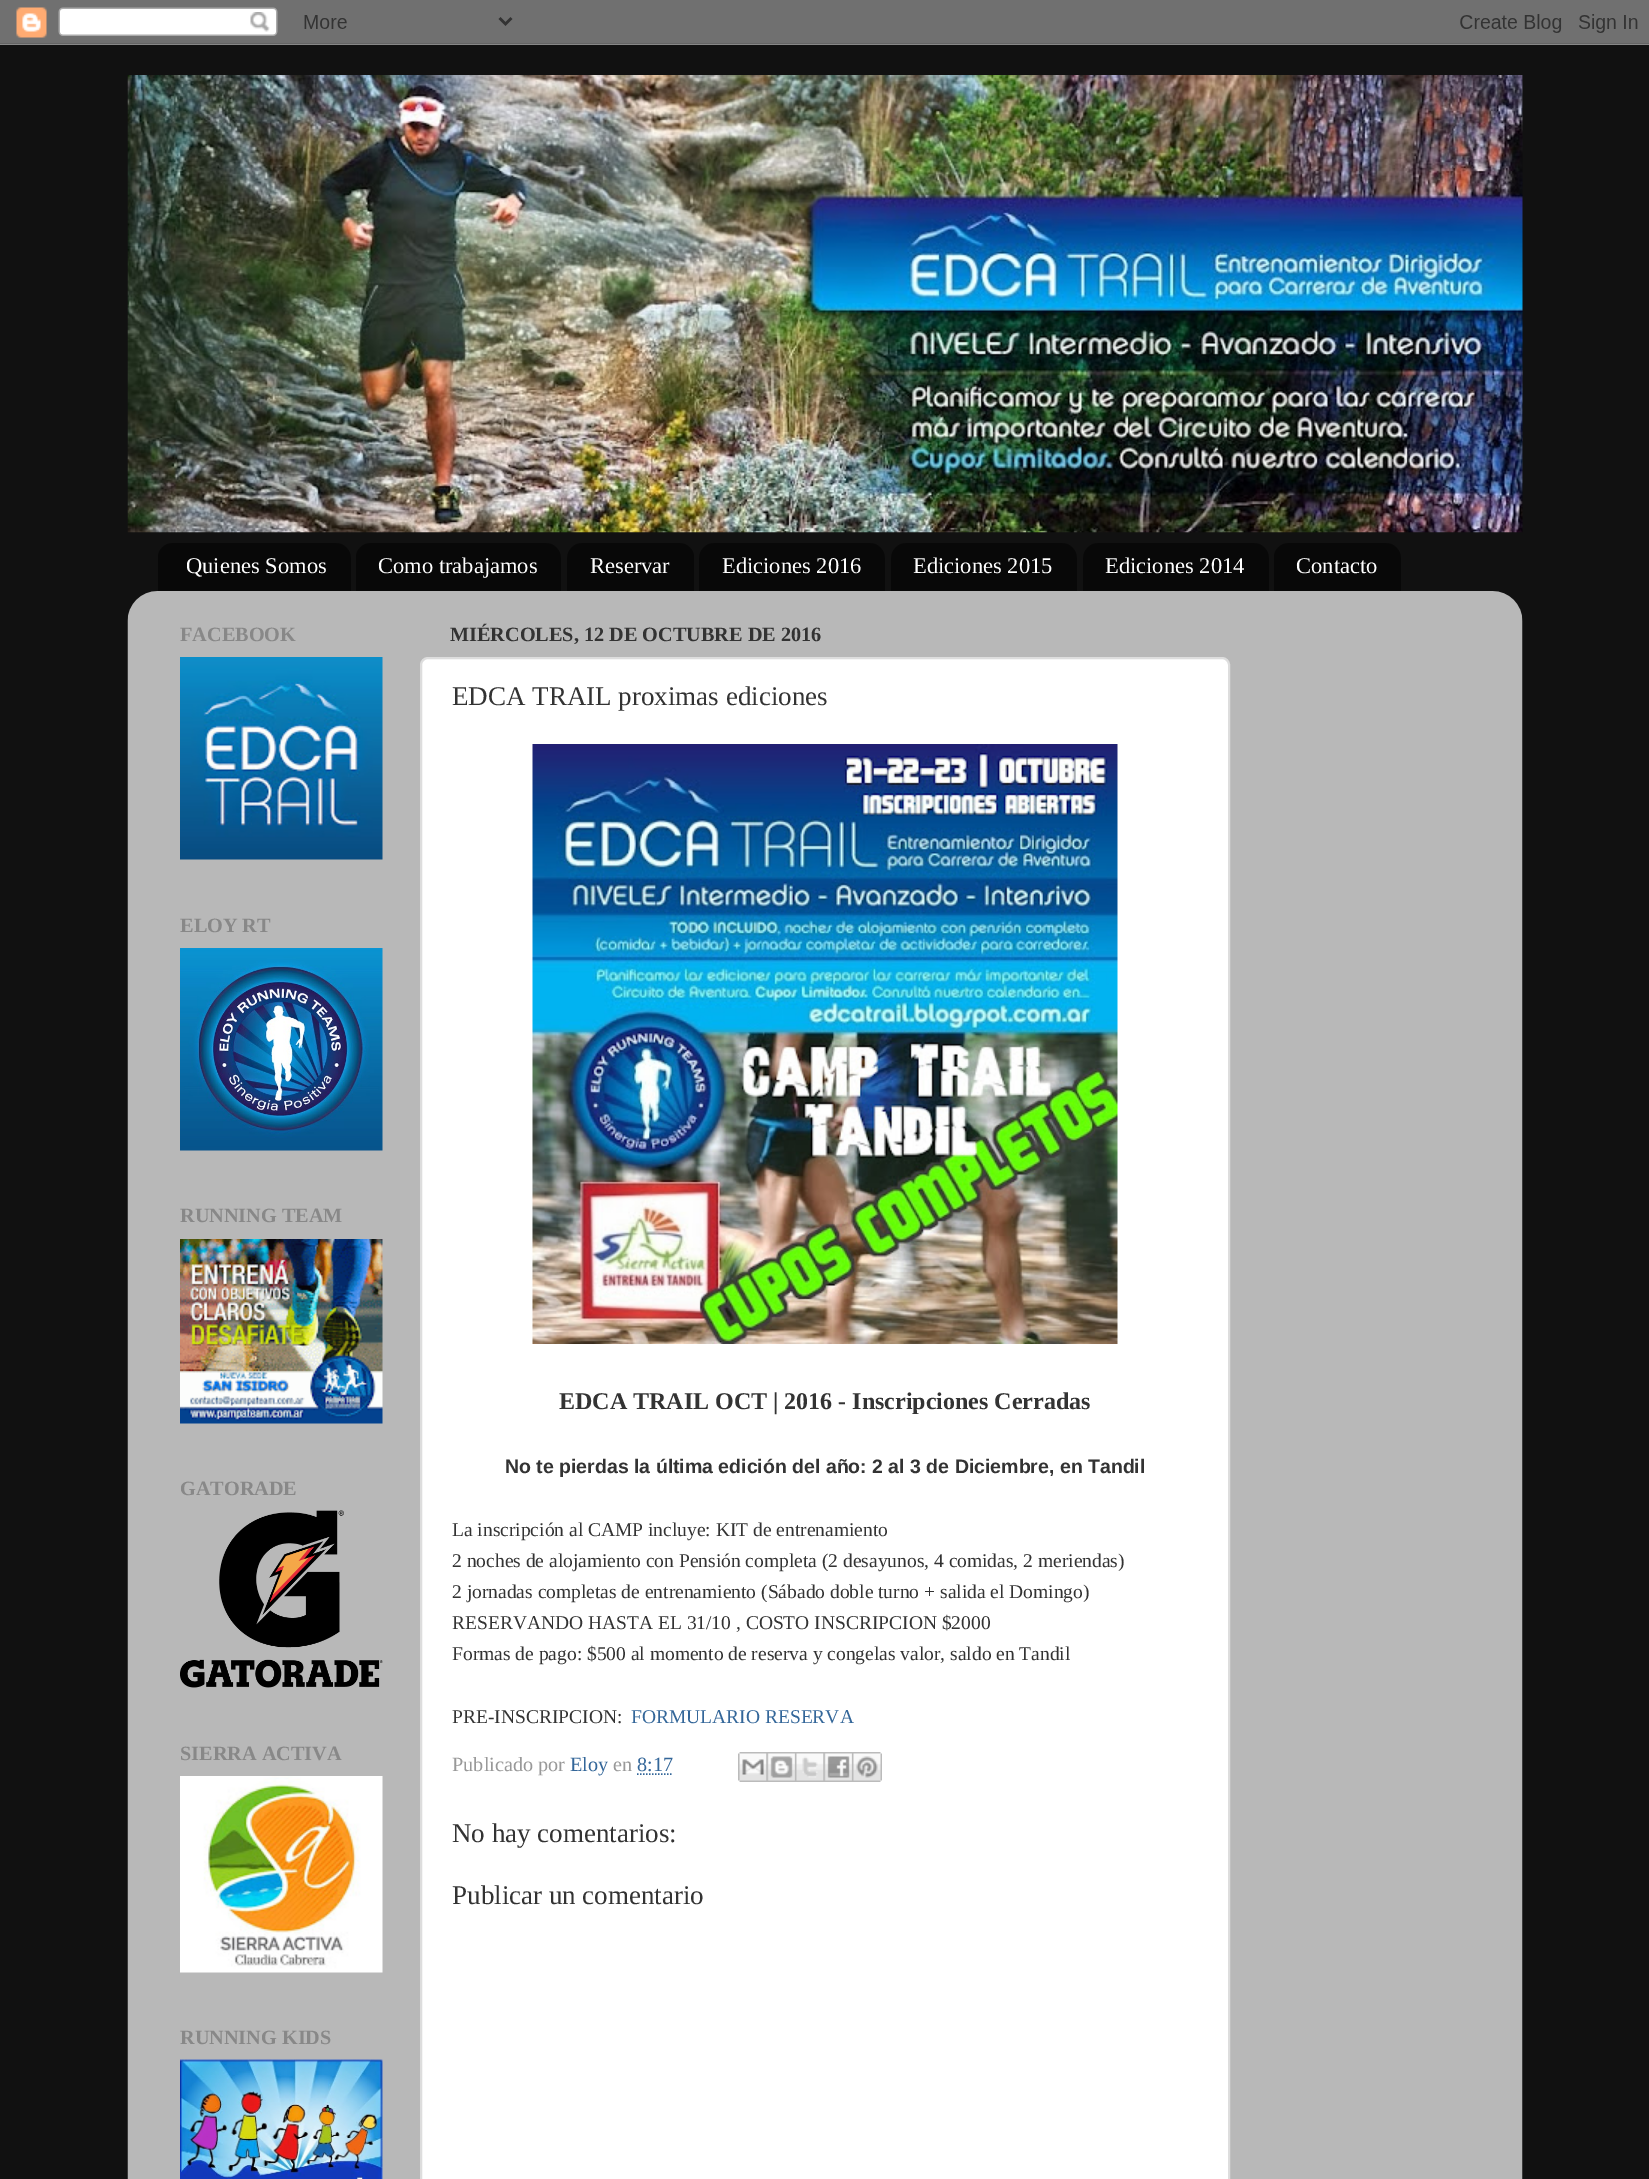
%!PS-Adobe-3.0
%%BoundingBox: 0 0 1649 2179
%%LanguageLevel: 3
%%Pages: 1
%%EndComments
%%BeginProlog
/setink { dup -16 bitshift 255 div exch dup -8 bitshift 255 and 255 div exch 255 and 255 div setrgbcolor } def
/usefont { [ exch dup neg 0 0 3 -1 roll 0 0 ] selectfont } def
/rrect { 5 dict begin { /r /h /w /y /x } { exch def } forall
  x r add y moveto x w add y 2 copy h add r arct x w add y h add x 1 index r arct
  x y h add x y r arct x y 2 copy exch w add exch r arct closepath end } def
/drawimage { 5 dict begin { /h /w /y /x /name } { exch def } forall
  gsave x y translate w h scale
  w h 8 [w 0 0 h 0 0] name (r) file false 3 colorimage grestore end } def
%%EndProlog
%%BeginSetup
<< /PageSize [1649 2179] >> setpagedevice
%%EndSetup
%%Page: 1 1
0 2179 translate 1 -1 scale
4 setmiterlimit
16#111111 setink
0 0 1649 2179 rectfill
(img1.raw) 0 0 1649 45 drawimage
(img2.raw) 127 75 1396 458 drawimage
(img3.raw) 158 543 193 48 drawimage
/LiberationSerif-Regular 22.5 usefont
16#FFFFFF setink
186 573 moveto (Quienes Somos) show
(img4.raw) 356 543 205 48 drawimage
378 573 moveto (Como trabajamos) show
(img5.raw) 567 543 127 48 drawimage
590 573 moveto (Reservar) show
(img6.raw) 699 543 186 48 drawimage
722 573 moveto (Ediciones 2016) show
(img6.raw) 891 543 186 48 drawimage
913 573 moveto (Ediciones 2015) show
(img6.raw) 1083 543 186 48 drawimage
1105 573 moveto (Ediciones 2014) show
(img7.raw) 1274 543 127 48 drawimage
1296 573 moveto (Contacto) show
(img8.raw) 127 591 1396 1588 drawimage
/LiberationSerif-Bold 20.25 usefont
16#888888 setink
180 641 moveto (FACEBOOK) show
(img9.raw) 180 657 203 203 drawimage
180 932 moveto (ELOY RT) show
(img10.raw) 180 948 203 203 drawimage
180 1222 moveto (RUNNING TEAM) show
(img11.raw) 180 1239 203 185 drawimage
180 1495 moveto (GATORADE) show
(img12.raw) 180 1510 203 178 drawimage
180 1760 moveto (SIERRA ACTIVA) show
(img13.raw) 180 1776 203 197 drawimage
180 2044 moveto (RUNNING KIDS) show
(img14.raw) 180 2059 203 120 drawimage
16#333333 setink
450 641 moveto (MIÉRCOLES, 12 DE OCTUBRE DE 2016) show
16#FFFFFF setink
421 658 808 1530 7 rrect gsave fill grestore
16#DDDDDD setink
2 setlinewidth
stroke
/LiberationSerif-Regular 27 usefont
16#333333 setink
452 705 moveto (EDCA TRAIL proximas ediciones) show
(img15.raw) 532 744 586 600 drawimage
/LiberationSerif-Bold 24 usefont
559 1409 moveto (EDCA TRAIL OCT | 2016 - Inscripciones Cerradas) show
/LiberationSans-Bold 19.5 usefont
505 1473 moveto (No te pierdas la última edición del año: 2 al 3 de Diciembre, en Tandil) show
/LiberationSerif-Regular 19.5 usefont
[
    [(La inscripción al CAMP incluye: KIT de entrenamiento) 452 1536]
    [(2 noches de alojamiento con Pensión completa \(2 desayunos, 4 comidas, 2 meriendas\)) 452 1567]
    [(2 jornadas completas de entrenamiento \(Sábado doble turno + salida el Domingo\)) 452 1598]
    [(RESERVANDO HASTA EL 31/10 , COSTO INSCRIPCION $2000) 452 1629]
    [(Formas de pago: $500 al momento de reserva y congelas valor, saldo en Tandil) 452 1660]
    [(PRE-INSCRIPCION:) 452 1723]
] { aload pop moveto show } forall
16#336699 setink
631 1723 moveto (FORMULARIO RESERVA) show
/LiberationSerif-Regular 20.25 usefont
16#999999 setink
452 1771 moveto (Publicado por) show
16#336699 setink
570 1771 moveto (Eloy) show
16#999999 setink
613 1771 moveto (en) show
16#336699 setink
637 1771 moveto (8:17) show
1.5 setlinewidth
[1.5 1.5] 0 setdash
637 1774 moveto 673 1774 lineto stroke
(img16.raw) 738 1752 29 30 drawimage
(img17.raw) 766 1752 29 30 drawimage
(img18.raw) 795 1752 29 30 drawimage
(img19.raw) 823 1752 29 30 drawimage
(img20.raw) 852 1752 30 30 drawimage
/LiberationSerif-Regular 27 usefont
16#333333 setink
452 1842 moveto (No hay comentarios:) show
452 1904 moveto (Publicar un comentario) show
showpage
%%EOF
